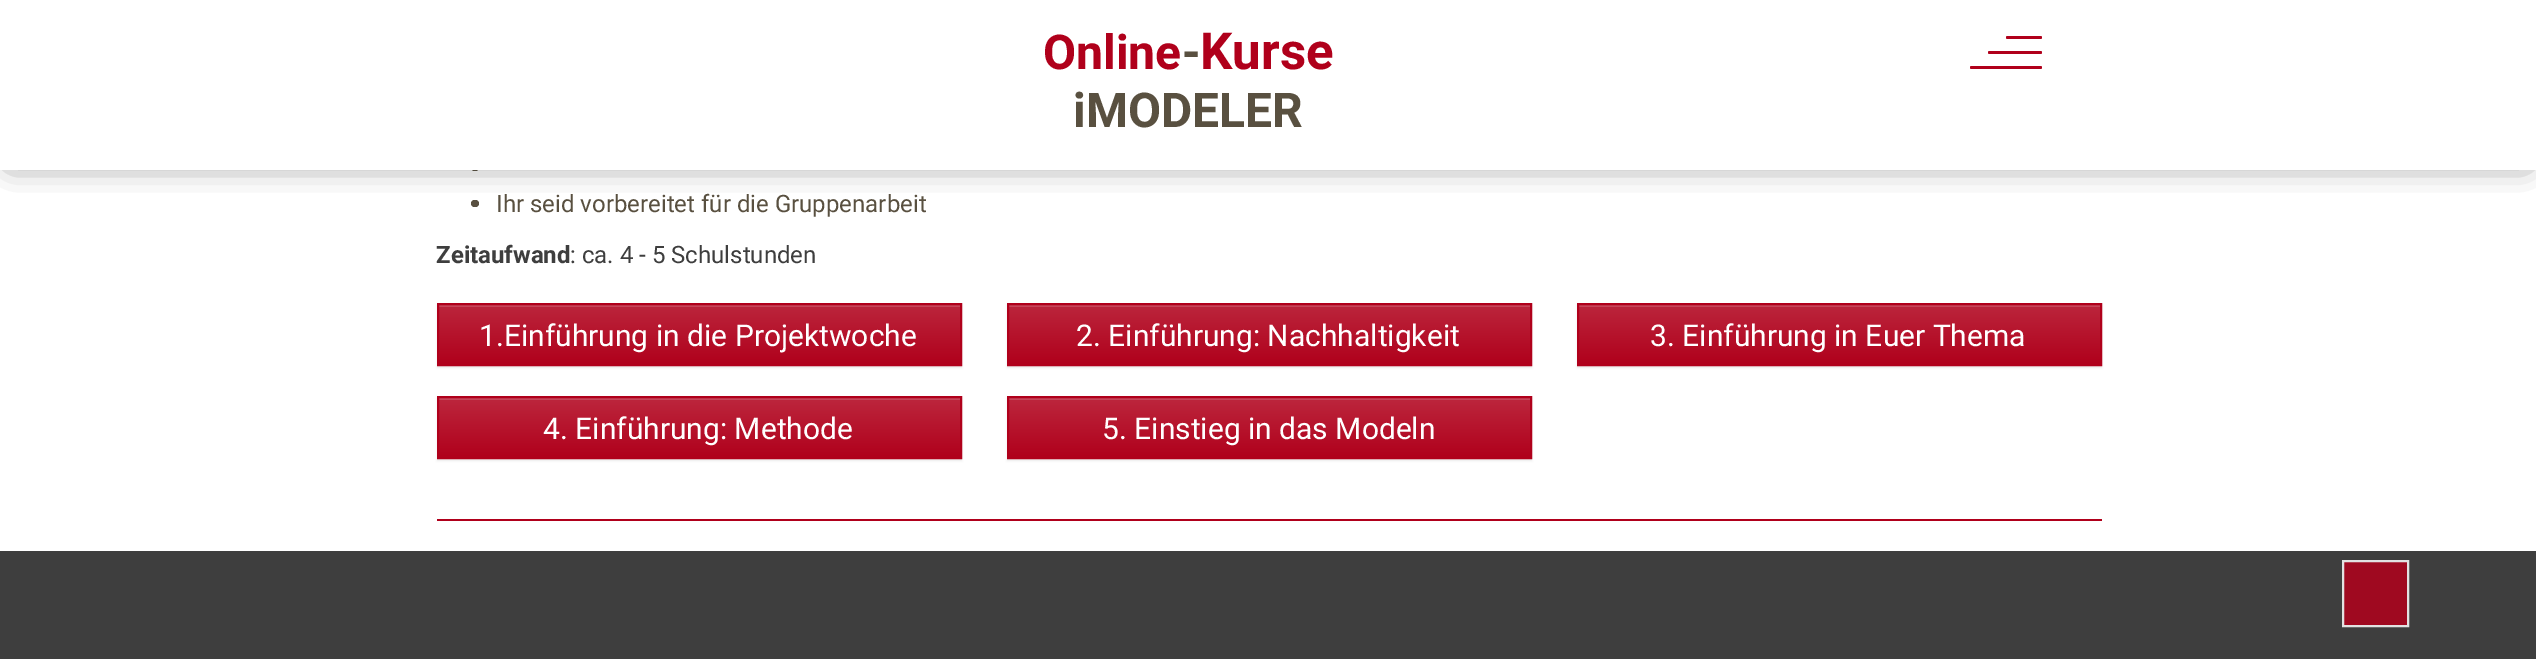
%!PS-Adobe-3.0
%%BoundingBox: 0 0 2536 659
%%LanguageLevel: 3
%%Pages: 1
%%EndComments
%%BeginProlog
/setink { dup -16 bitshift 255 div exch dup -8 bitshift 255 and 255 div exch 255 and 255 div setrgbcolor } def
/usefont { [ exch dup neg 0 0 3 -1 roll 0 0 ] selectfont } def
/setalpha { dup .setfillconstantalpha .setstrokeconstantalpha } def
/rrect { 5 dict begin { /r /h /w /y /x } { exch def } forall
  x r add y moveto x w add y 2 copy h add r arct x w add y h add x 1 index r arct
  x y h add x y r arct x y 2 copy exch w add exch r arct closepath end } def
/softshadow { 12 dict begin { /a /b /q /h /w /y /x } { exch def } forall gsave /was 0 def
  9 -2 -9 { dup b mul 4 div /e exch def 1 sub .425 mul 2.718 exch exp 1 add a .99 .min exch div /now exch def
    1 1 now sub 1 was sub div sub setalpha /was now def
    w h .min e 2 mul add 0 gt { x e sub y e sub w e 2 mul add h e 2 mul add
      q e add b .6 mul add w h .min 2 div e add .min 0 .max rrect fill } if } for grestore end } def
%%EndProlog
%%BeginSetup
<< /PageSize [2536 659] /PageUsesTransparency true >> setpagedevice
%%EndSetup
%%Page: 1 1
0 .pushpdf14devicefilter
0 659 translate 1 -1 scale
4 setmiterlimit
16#FFFFFF setink
0 0 2536 659 rectfill
16#595040 setink
471 164 8 7 3.5 rrect fill
471 200 8 7 3.5 rrect fill
16#2E2E2E setink
12 12 2513 147 0 15 1 softshadow
16#FFFFFF setink
0 0 2536 170 rectfill
/Roboto-Bold 48 usefont
16#B0001B setink
1043 69 moveto (Online) show
16#595040 setink
1182 69 moveto (-) show
/Roboto-Bold 51 usefont
16#B0001B setink
1200 69 moveto (Kurse) show
/Roboto-Bold 48 usefont
16#595040 setink
1073 127 moveto (iMODELER) show
16#B0001B setink
1988 51 54 3 1.5 rrect fill
2006 36 36 3 1.5 rrect fill
1970 66 72 3 1.5 rrect fill
437 519 1665 2 rectfill
/Roboto-Regular 24 usefont
16#595040 setink
496 212 moveto (Ihr seid vorbereitet für die Gruppenarbeit) show
/Roboto-Bold 24 usefont
16#3E3E3E setink
436 263 moveto (Zeitaufwand) show
/Roboto-Regular 24 usefont
570 263 moveto (: ca. 4 - 5 Schulstunden) show
16#000000 setink
437 305 525 63 0 1 0.07 softshadow
gsave 439 307 moveto 960 307 lineto 960 364 lineto 439 364 lineto closepath clip newpath
<< /ShadingType 2 /ColorSpace /DeviceRGB /Coords [699 304 699 365] /Extend [true true] /Function << /FunctionType 2 /Domain [0 1] /C0 [0.737 0.149 0.239] /C1 [0.69 0 0.106] /N 1 >> >> shfill grestore
16#C64559 setink
438 305 522 2 rectfill
16#B0001B setink
2 setlinewidth
438 304 523 61 rectstroke
/Roboto-Regular 30 usefont
16#FFFFFF setink
479 346 moveto (1.Einführung in die Projektwoche) show
16#000000 setink
1007 305 525 63 0 1 0.07 softshadow
gsave 1009 307 moveto 1530 307 lineto 1530 364 lineto 1009 364 lineto closepath clip newpath
<< /ShadingType 2 /ColorSpace /DeviceRGB /Coords [1269 304 1269 365] /Extend [true true] /Function << /FunctionType 2 /Domain [0 1] /C0 [0.737 0.149 0.239] /C1 [0.69 0 0.106] /N 1 >> >> shfill grestore
16#C64559 setink
1008 305 522 2 rectfill
16#B0001B setink
1008 304 523 61 rectstroke
16#FFFFFF setink
1076 346 moveto (2. Einführung: Nachhaltigkeit) show
16#000000 setink
1577 305 525 63 0 1 0.07 softshadow
gsave 1579 307 moveto 2100 307 lineto 2100 364 lineto 1579 364 lineto closepath clip newpath
<< /ShadingType 2 /ColorSpace /DeviceRGB /Coords [1839 304 1839 365] /Extend [true true] /Function << /FunctionType 2 /Domain [0 1] /C0 [0.737 0.149 0.239] /C1 [0.69 0 0.106] /N 1 >> >> shfill grestore
16#C64559 setink
1578 305 522 2 rectfill
16#B0001B setink
1578 304 523 61 rectstroke
16#FFFFFF setink
1650 346 moveto (3. Einführung in Euer Thema) show
16#000000 setink
437 398 525 63 0 1 0.07 softshadow
gsave 439 400 moveto 960 400 lineto 960 457 lineto 439 457 lineto closepath clip newpath
<< /ShadingType 2 /ColorSpace /DeviceRGB /Coords [699 398 699 458] /Extend [true true] /Function << /FunctionType 2 /Domain [0 1] /C0 [0.737 0.149 0.239] /C1 [0.69 0 0.106] /N 1 >> >> shfill grestore
16#C6465A setink
438 398 522 2 rectfill
16#B0001B setink
438 397 523 61 rectstroke
16#FFFFFF setink
543 439 moveto (4. Einführung: Methode) show
16#000000 setink
1007 398 525 63 0 1 0.07 softshadow
gsave 1009 400 moveto 1530 400 lineto 1530 457 lineto 1009 457 lineto closepath clip newpath
<< /ShadingType 2 /ColorSpace /DeviceRGB /Coords [1269 398 1269 458] /Extend [true true] /Function << /FunctionType 2 /Domain [0 1] /C0 [0.737 0.149 0.239] /C1 [0.69 0 0.106] /N 1 >> >> shfill grestore
16#C6465A setink
1008 398 522 2 rectfill
16#B0001B setink
1008 397 523 61 rectstroke
16#FFFFFF setink
1102 439 moveto (5. Einstieg in das Modeln) show
16#3E3E3E setink
0 551 2536 108 rectfill
16#9F0920 setink
2343 561 moveto 2408 561 lineto 2408 626 lineto 2343 626 lineto closepath gsave fill grestore
16#E2E2E2 setink
stroke
.poppdf14devicefilter showpage
%%EOF
